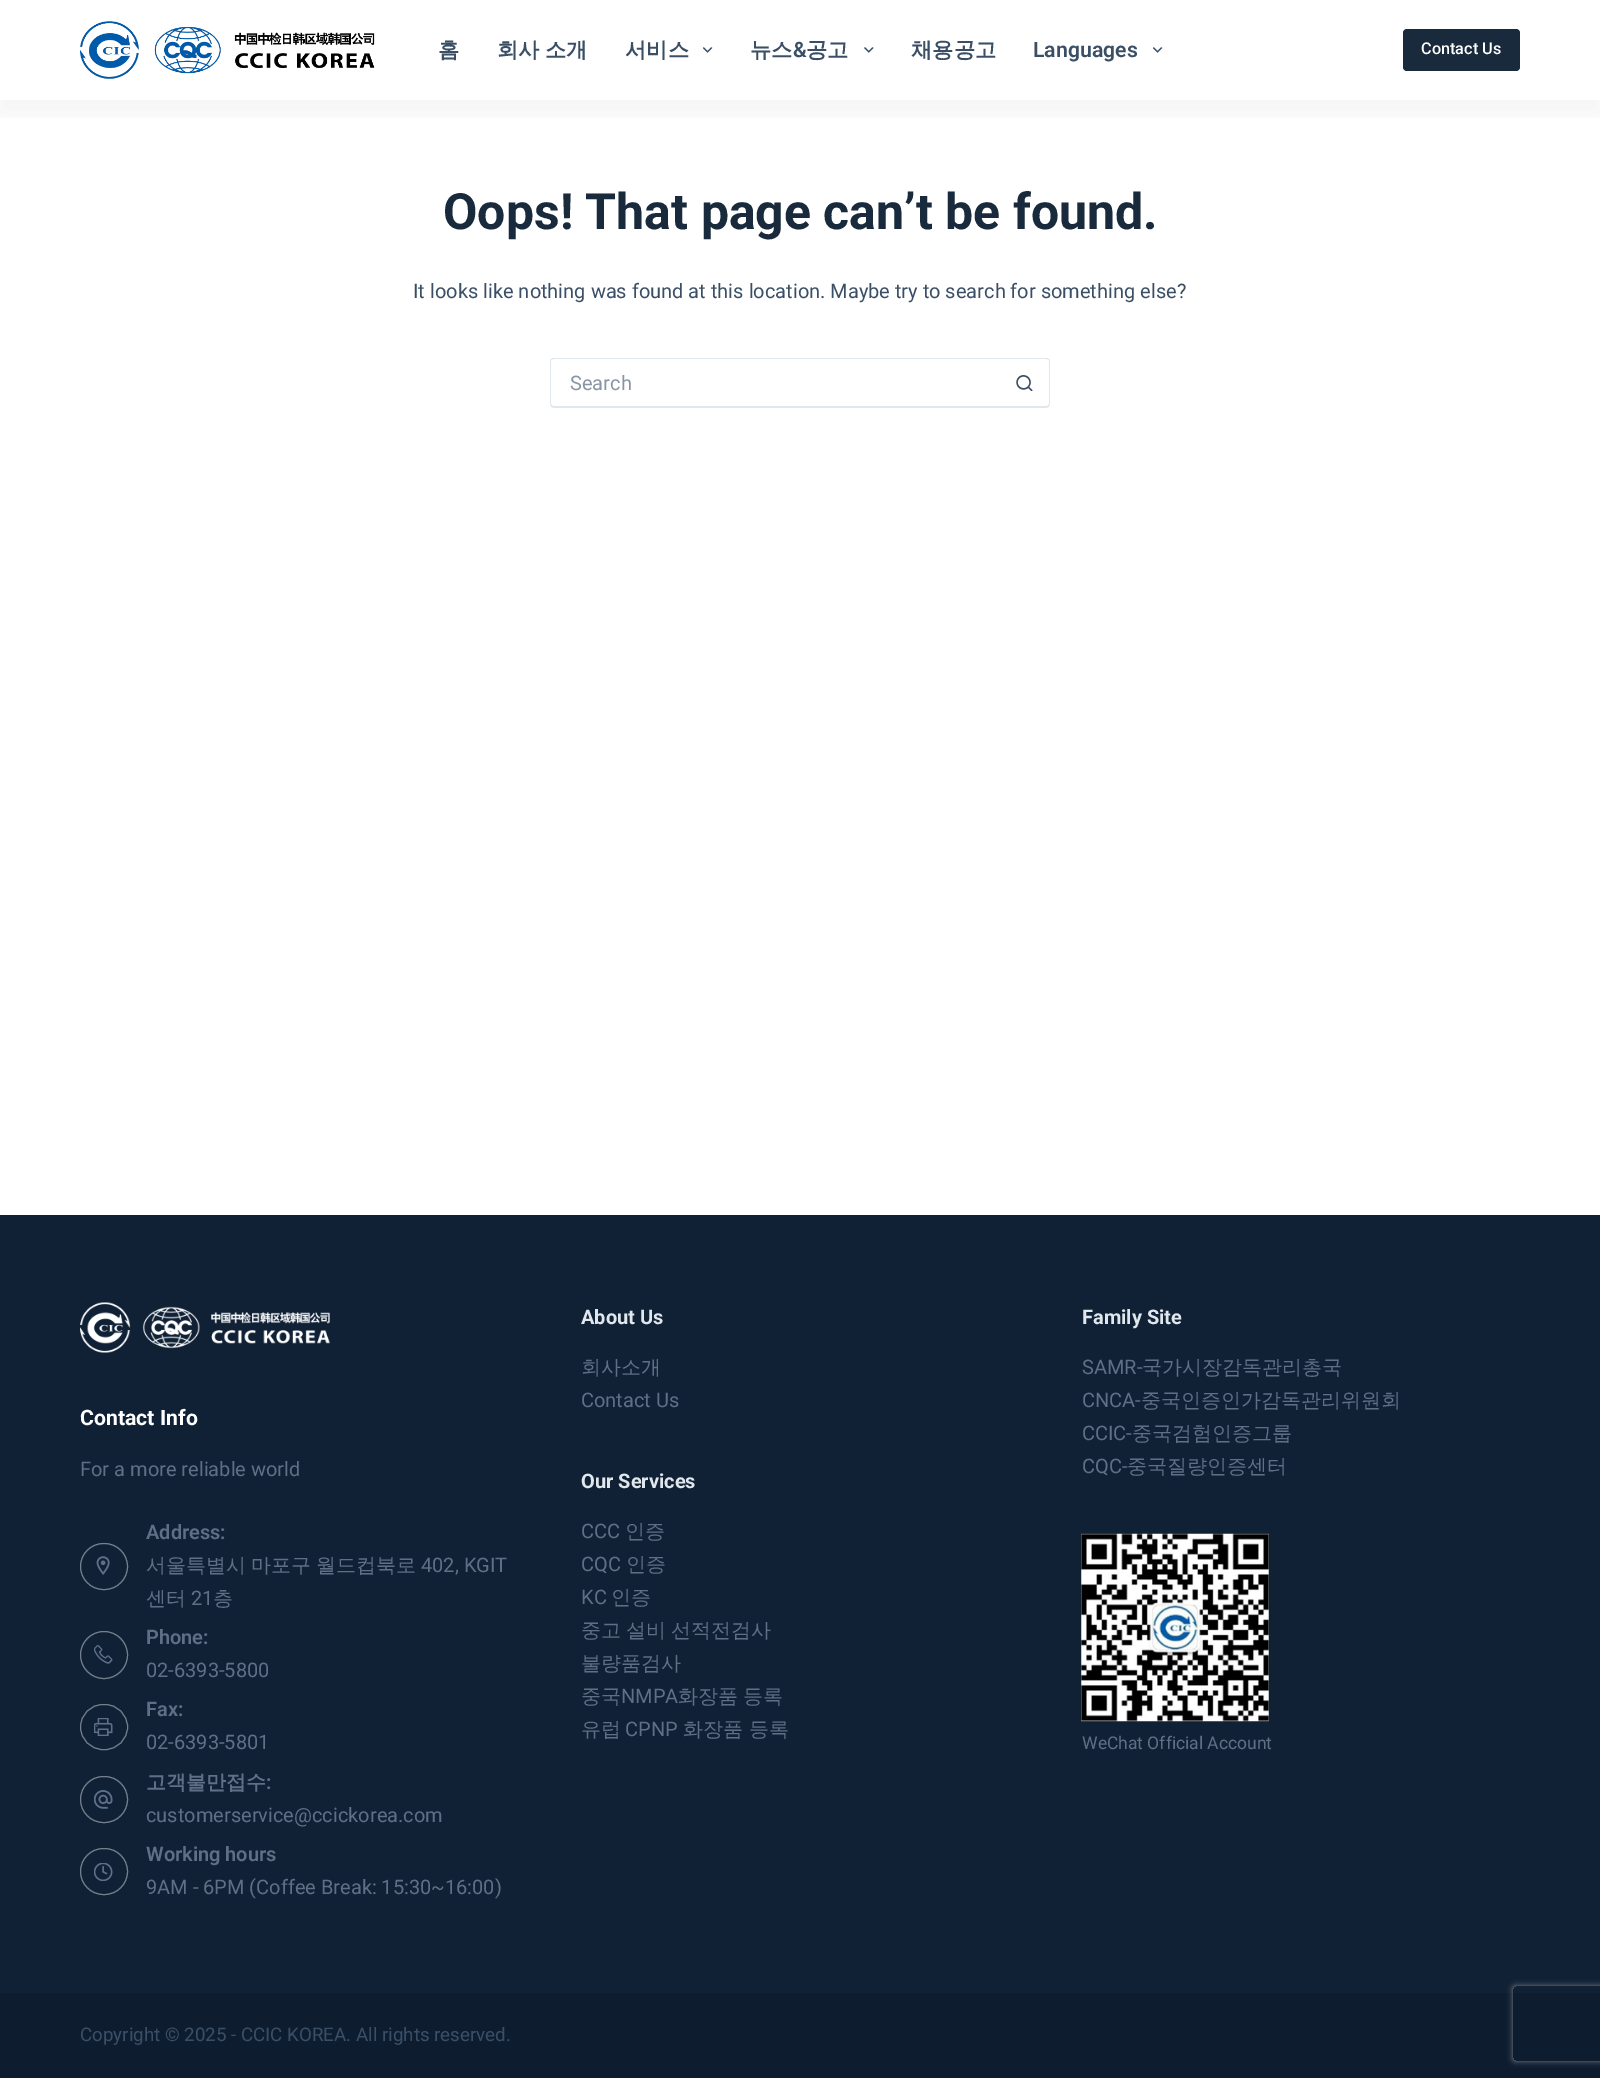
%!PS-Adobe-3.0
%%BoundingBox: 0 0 1600 2078
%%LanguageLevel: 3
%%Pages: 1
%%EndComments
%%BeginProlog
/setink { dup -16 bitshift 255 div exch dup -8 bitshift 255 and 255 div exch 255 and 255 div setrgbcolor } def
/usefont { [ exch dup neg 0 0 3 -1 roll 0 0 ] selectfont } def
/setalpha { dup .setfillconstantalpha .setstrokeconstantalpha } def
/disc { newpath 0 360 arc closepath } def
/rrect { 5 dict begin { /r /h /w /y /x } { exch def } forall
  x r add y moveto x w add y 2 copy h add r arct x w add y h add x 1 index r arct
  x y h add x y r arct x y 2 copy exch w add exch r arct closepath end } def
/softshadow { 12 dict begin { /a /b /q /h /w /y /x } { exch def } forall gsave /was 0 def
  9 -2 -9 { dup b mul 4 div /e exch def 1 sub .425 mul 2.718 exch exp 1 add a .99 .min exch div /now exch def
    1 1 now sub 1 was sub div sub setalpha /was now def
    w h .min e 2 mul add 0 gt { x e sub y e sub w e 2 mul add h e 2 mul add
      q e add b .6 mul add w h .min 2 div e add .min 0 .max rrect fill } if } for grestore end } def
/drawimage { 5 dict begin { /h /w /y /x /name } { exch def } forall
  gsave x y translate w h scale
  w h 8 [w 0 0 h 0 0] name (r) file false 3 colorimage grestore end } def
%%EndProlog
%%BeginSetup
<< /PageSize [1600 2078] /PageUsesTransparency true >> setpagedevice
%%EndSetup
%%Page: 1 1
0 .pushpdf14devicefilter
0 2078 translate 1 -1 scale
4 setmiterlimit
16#FFFFFF setink
0 0 1600 2078 rectfill
gsave
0 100 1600 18 rectclip
16#2B3D50 setink
0 13 1600 100 0 12.5 0.06 softshadow
grestore
(img1.raw) 80 21 295 58 drawimage
/WenQuanYiZenHei-Bold 21.25 usefont
16#3A4F66 setink
438 57 moveto (홈) show
497 57 moveto -1 0 32 (회사 소개) widthshow
625 57 moveto (서비스) show
(img2.raw) 703 47 10 6 drawimage
750 57 moveto (뉴스) show
/Roboto-SemiBold 21.25 usefont
793 57 moveto (&) show
/WenQuanYiZenHei-Bold 21.25 usefont
806 57 moveto (공고) show
(img3.raw) 864 47 10 6 drawimage
911 57 moveto (채용공고) show
/Roboto-SemiBold 21.25 usefont
1033 57 moveto (Languages) show
(img2.raw) 1153 47 10 6 drawimage
16#192A3D setink
1403 29 117 42 4 rrect fill
/Roboto-Medium 16.25 usefont
16#FFFFFF setink
1421 54 moveto (Contact Us) show
/Roboto-Bold 50 usefont
16#192A3D setink
443 229 moveto (Oops! That page can’t be found.) show
/Roboto-Regular 20 usefont
16#3A4F66 setink
413 298 moveto (It looks like nothing was found at this location. Maybe try to search for something else?) show
16#E1E8ED setink
554 358 moveto 1000 358 lineto 1000 408 lineto 554 408 lineto 552 408 550 406 550 404 curveto 550 361 lineto 550 359 552 358 554 358 curveto closepath 554 359 moveto 1000 359 lineto 1000 406 lineto 554 406 lineto 552 406 551 405 551 404 curveto 551 361 lineto 551 360 552 359 554 359 curveto closepath eofill
16#8995A3 setink
570 390 moveto (Search) show
16#E1E8ED setink
1000 358 moveto 1046 358 lineto 1048 358 1050 359 1050 361 curveto 1050 404 lineto 1050 406 1048 408 1046 408 curveto 1000 408 lineto closepath 1000 359 moveto 1046 359 lineto 1048 359 1049 360 1049 361 curveto 1049 404 lineto 1049 405 1048 406 1046 406 curveto 1000 406 lineto closepath eofill
(img4.raw) 1016 375 17 16 drawimage
16#102136 setink
0 1215 1600 778 rectfill
(img5.raw) 80 1302 250 51 drawimage
/Roboto-Bold 21.25 usefont
16#FFFFFF setink
80 1425 moveto (Contact Info) show
/Roboto-Regular 20 usefont
16#5E7086 setink
80 1476 moveto (For a more reliable world) show
16#75808D setink
80.5 1543.5 47 46 23 rrect stroke
(img6.raw) 96 1556 14 19 drawimage
/Roboto-SemiBold 20 usefont
16#5E7086 setink
146 1539 moveto (Address:) show
/WenQuanYiZenHei-Medium 20 usefont
[
    [(서울특별시) 146 1572]
    [(마포구) 251 1572]
    [(월드컵북로) 316 1572]
] { aload pop moveto show } forall
/Roboto-Regular 20 usefont
421 1572 moveto (402, KGIT) show
/WenQuanYiZenHei-Medium 20 usefont
146 1605 moveto (센터) show
/Roboto-Regular 20 usefont
191 1605 moveto (21) show
/WenQuanYiZenHei-Medium 20 usefont
213 1605 moveto (층) show
16#75808D setink
104 1655 23.5 disc stroke
(img7.raw) 94 1645 19 19 drawimage
/Roboto-SemiBold 20 usefont
16#5E7086 setink
146 1644 moveto (Phone:) show
/Roboto-Regular 20 usefont
146 1677 moveto (02-6393-5800) show
16#75808D setink
80.5 1704.5 47 45 22.5 rrect stroke
(img8.raw) 94 1718 19 18 drawimage
/Roboto-SemiBold 20 usefont
16#5E7086 setink
146 1716 moveto (Fax:) show
/Roboto-Regular 20 usefont
146 1749 moveto (02-6393-5801) show
16#75808D setink
80.5 1776.5 47 46 23 rrect stroke
(img9.raw) 94 1790 19 19 drawimage
/WenQuanYiZenHei-Bold 20 usefont
16#5E7086 setink
146 1789 moveto (고객불만접수) show
/Roboto-SemiBold 20 usefont
266 1789 moveto (:) show
/Roboto-Regular 20 usefont
146 1822 moveto (customerservice@ccickorea.com) show
16#75808D setink
80.5 1848.5 47 46 23 rrect stroke
(img10.raw) 94 1863 19 18 drawimage
/Roboto-SemiBold 20 usefont
16#5E7086 setink
146 1861 moveto (Working hours) show
/Roboto-Regular 20 usefont
146 1894 moveto (9AM - 6PM \(Coffee Break: 15:30~16:00\)) show
/Roboto-Bold 20 usefont
16#E1E8ED setink
581 1324 moveto (About Us) show
/WenQuanYiZenHei-Medium 20 usefont
16#5E7086 setink
581 1374 moveto (회사소개) show
/Roboto-Regular 20 usefont
581 1407 moveto (Contact Us) show
/Roboto-Bold 20 usefont
16#E1E8ED setink
581 1488 moveto (Our Services) show
/Roboto-Regular 20 usefont
16#5E7086 setink
581 1538 moveto (CCC) show
/WenQuanYiZenHei-Medium 20 usefont
625 1538 moveto (인증) show
/Roboto-Regular 20 usefont
581 1571 moveto (CQC) show
/WenQuanYiZenHei-Medium 20 usefont
626 1571 moveto (인증) show
/Roboto-Regular 20 usefont
581 1604 moveto (KC) show
/WenQuanYiZenHei-Medium 20 usefont
611 1604 moveto (인증) show
581 1637 moveto -1 0 32 (중고 설비 선적전검사) widthshow
581 1670 moveto (불량품검사) show
581 1703 moveto (중국) show
/Roboto-Regular 20 usefont
621 1703 moveto (NMPA) show
/WenQuanYiZenHei-Medium 20 usefont
678 1703 moveto -1 0 32 (화장품 등록) widthshow
581 1736 moveto (유럽) show
/Roboto-Regular 20 usefont
625 1736 moveto (CPNP) show
/WenQuanYiZenHei-Medium 20 usefont
683 1736 moveto (화장품 등록) show
/Roboto-Bold 20 usefont
16#E1E8ED setink
1082 1324 moveto (Family Site) show
/Roboto-Regular 20 usefont
16#5E7086 setink
1082 1374 moveto (SAMR-) show
/WenQuanYiZenHei-Medium 20 usefont
1142 1374 moveto (국가시장감독관리총국) show
/Roboto-Regular 20 usefont
1082 1407 moveto (CNCA-) show
/WenQuanYiZenHei-Medium 20 usefont
1141 1407 moveto (중국인증인가감독관리위원회) show
/Roboto-Regular 20 usefont
1082 1440 moveto (CCIC-) show
/WenQuanYiZenHei-Medium 20 usefont
1132 1440 moveto (중국검험인증그룹) show
/Roboto-Regular 20 usefont
1082 1473 moveto (CQC-) show
/WenQuanYiZenHei-Medium 20 usefont
1127 1473 moveto (중국질량인증센터) show
(img11.raw) 1081 1533 188 189 drawimage
/Roboto-Regular 17.5 usefont
1082 1749 moveto (WeChat Official Account) show
16#0D1C2F setink
0 1993 1600 85 rectfill
/Roboto-Regular 18.75 usefont
16#3A4F66 setink
80 2041 moveto (Copyright © 2025 - CCIC KOREA. All rights reserved.) show
gsave
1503 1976 moveto 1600 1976 lineto 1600 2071 lineto 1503 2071 lineto closepath 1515.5 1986 moveto 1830.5 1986 lineto 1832 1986 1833 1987 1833 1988.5 curveto 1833 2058.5 lineto 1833 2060 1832 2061 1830.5 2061 curveto 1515.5 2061 lineto 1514 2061 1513 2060 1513 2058.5 curveto 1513 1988.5 lineto 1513 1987 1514 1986 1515.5 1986 curveto closepath eoclip newpath
16#808080 setink
1513 1986 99 75 2.5 3 1 softshadow
grestore
.poppdf14devicefilter showpage
%%EOF
